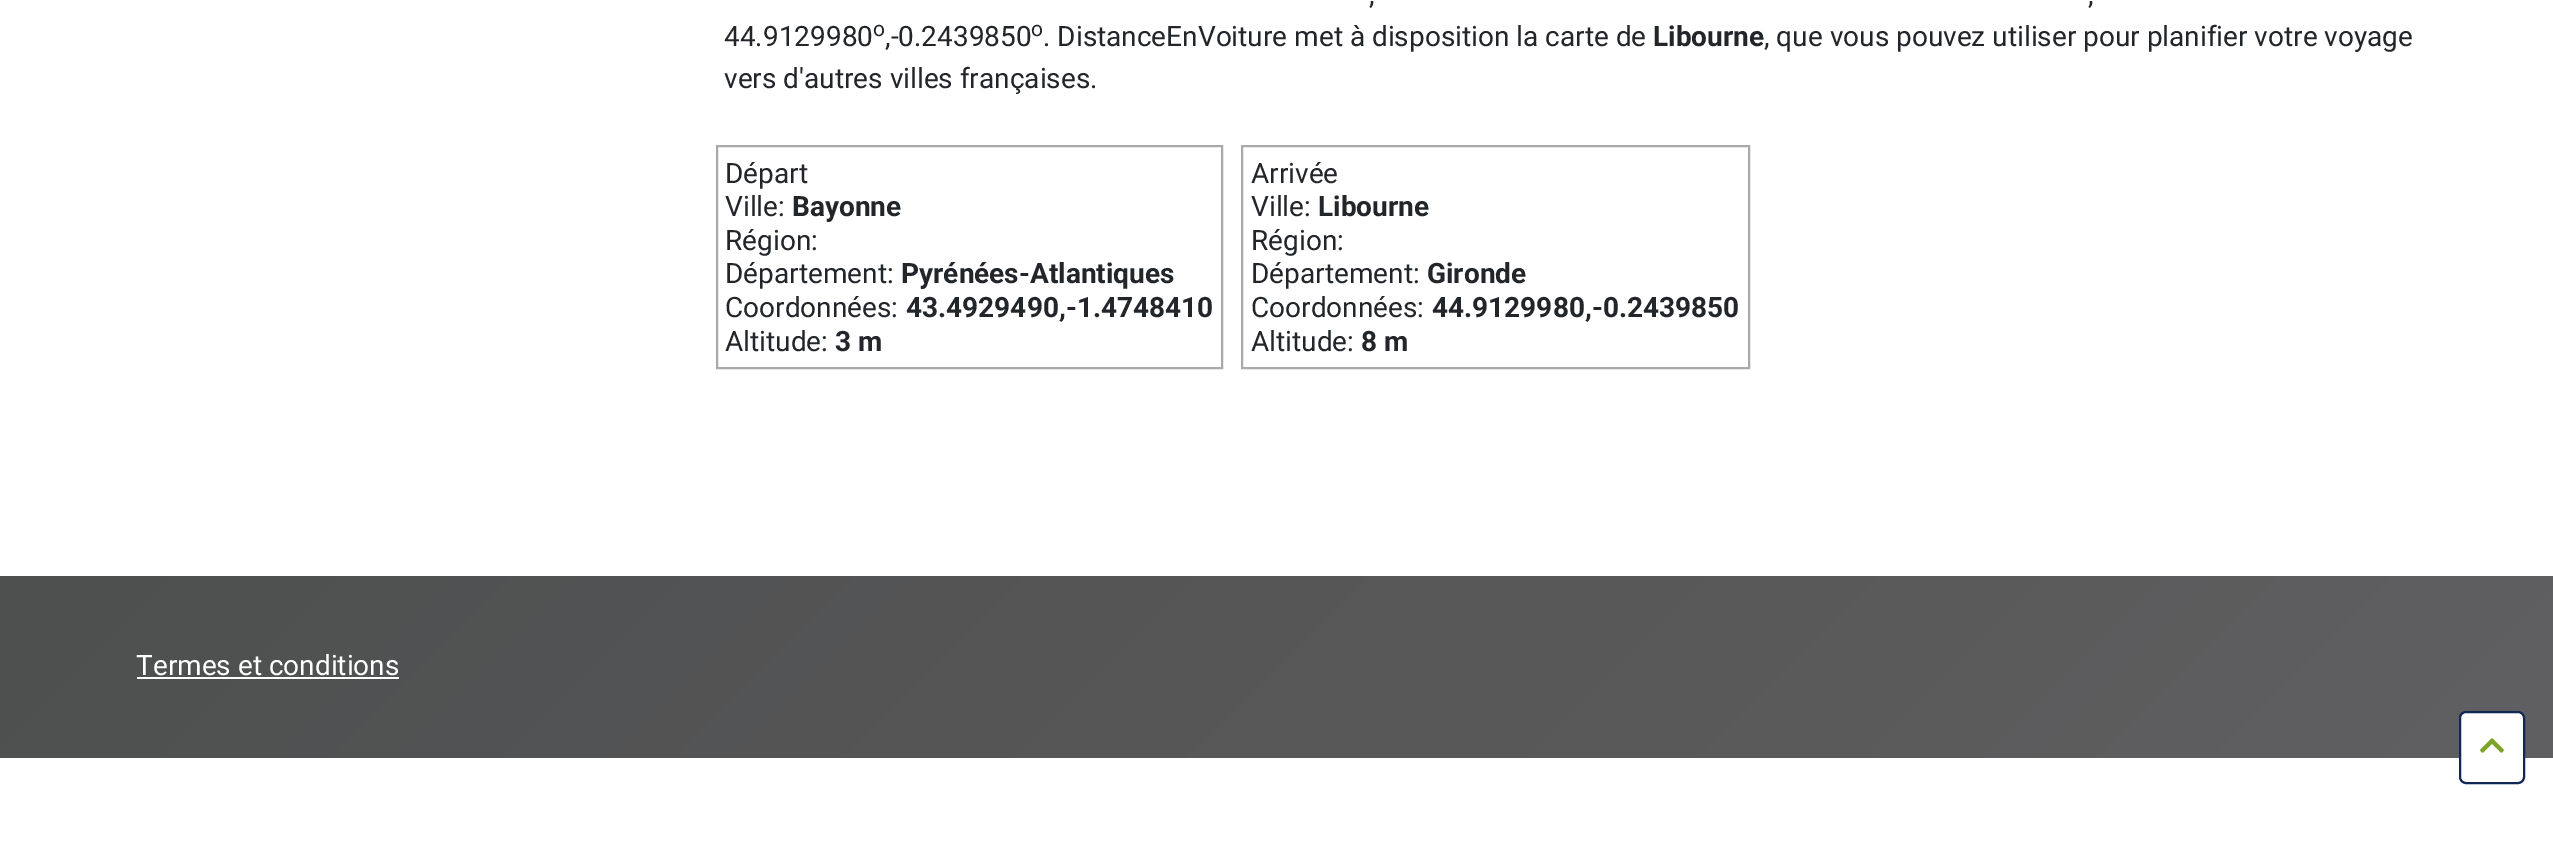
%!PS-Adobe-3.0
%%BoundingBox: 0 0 2553 868
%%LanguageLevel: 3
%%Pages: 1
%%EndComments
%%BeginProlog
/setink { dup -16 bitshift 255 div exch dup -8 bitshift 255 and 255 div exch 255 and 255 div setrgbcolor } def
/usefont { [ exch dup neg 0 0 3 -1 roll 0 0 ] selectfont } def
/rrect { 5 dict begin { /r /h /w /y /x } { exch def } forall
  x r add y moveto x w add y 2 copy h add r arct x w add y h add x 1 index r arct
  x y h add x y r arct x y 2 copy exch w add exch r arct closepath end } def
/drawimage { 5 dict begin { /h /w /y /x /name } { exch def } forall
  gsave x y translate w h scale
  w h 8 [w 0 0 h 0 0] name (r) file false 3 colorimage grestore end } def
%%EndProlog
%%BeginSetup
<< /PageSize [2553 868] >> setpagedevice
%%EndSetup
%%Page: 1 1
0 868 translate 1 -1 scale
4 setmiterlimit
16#FFFFFF setink
0 0 2553 868 rectfill
/Roboto-Regular 28 usefont
16#22262A setink
[
    [(,) 1369 4]
    [(,) 2088 4]
    [(44.9129980) 724 46]
] { aload pop moveto show } forall
/Roboto-Regular 21 usefont
873 36 moveto (o) show
/Roboto-Regular 28 usefont
885 46 moveto (,-0.2439850) show
/Roboto-Regular 21 usefont
1031 36 moveto (o) show
/Roboto-Regular 28 usefont
1043 46 moveto (. DistanceEnVoiture met à disposition la carte de) show
/Roboto-Bold 28 usefont
1653 46 moveto (Libourne) show
/Roboto-Regular 28 usefont
1764 46 moveto (, que vous pouvez utiliser pour planifier votre voyage) show
724 88 moveto (vers d'autres villes françaises.) show
16#AAAAAA setink
2 setlinewidth
717 146 505 222 rectstroke
16#22262A setink
725 183 moveto (Départ) show
725 216 moveto (Ville:) show
/Roboto-Bold 28 usefont
792 216 moveto (Bayonne) show
/Roboto-Regular 28 usefont
725 250 moveto (Région:) show
725 283 moveto (Département:) show
/Roboto-Bold 28 usefont
901 283 moveto (Pyrénées-Atlantiques) show
/Roboto-Regular 28 usefont
725 317 moveto (Coordonnées:) show
/Roboto-Bold 28 usefont
906 317 moveto (43.4929490,-1.4748410) show
/Roboto-Regular 28 usefont
725 351 moveto (Altitude:) show
/Roboto-Bold 28 usefont
835 351 moveto (3 m) show
16#AAAAAA setink
1242 146 507 222 rectstroke
/Roboto-Regular 28 usefont
16#22262A setink
1251 183 moveto (Arrivée) show
1251 216 moveto (Ville:) show
/Roboto-Bold 28 usefont
1318 216 moveto (Libourne) show
/Roboto-Regular 28 usefont
1251 250 moveto (Région:) show
1251 283 moveto (Département:) show
/Roboto-Bold 28 usefont
1427 283 moveto (Gironde) show
/Roboto-Regular 28 usefont
1251 317 moveto (Coordonnées:) show
/Roboto-Bold 28 usefont
1432 317 moveto (44.9129980,-0.2439850) show
/Roboto-Regular 28 usefont
1251 351 moveto (Altitude:) show
/Roboto-Bold 28 usefont
1361 351 moveto (8 m) show
gsave 0 576 moveto 2553 576 lineto 2553 758 lineto 0 758 lineto closepath clip newpath
<< /ShadingType 2 /ColorSpace /DeviceRGB /Coords [593 -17 1960 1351] /Extend [true true] /Function << /FunctionType 2 /Domain [0 1] /C0 [0.306 0.31 0.31] /C1 [0.376 0.373 0.38] /N 1 >> >> shfill grestore
/Roboto-Regular 28 usefont
16#FFFFFF setink
136 675 moveto (Termes et conditions) show
137 677 262 2 rectfill
2460 712 64 71 6 rrect gsave fill grestore
16#112855 setink
stroke
(img1.raw) 2480 738 24 15 drawimage
showpage
%%EOF
